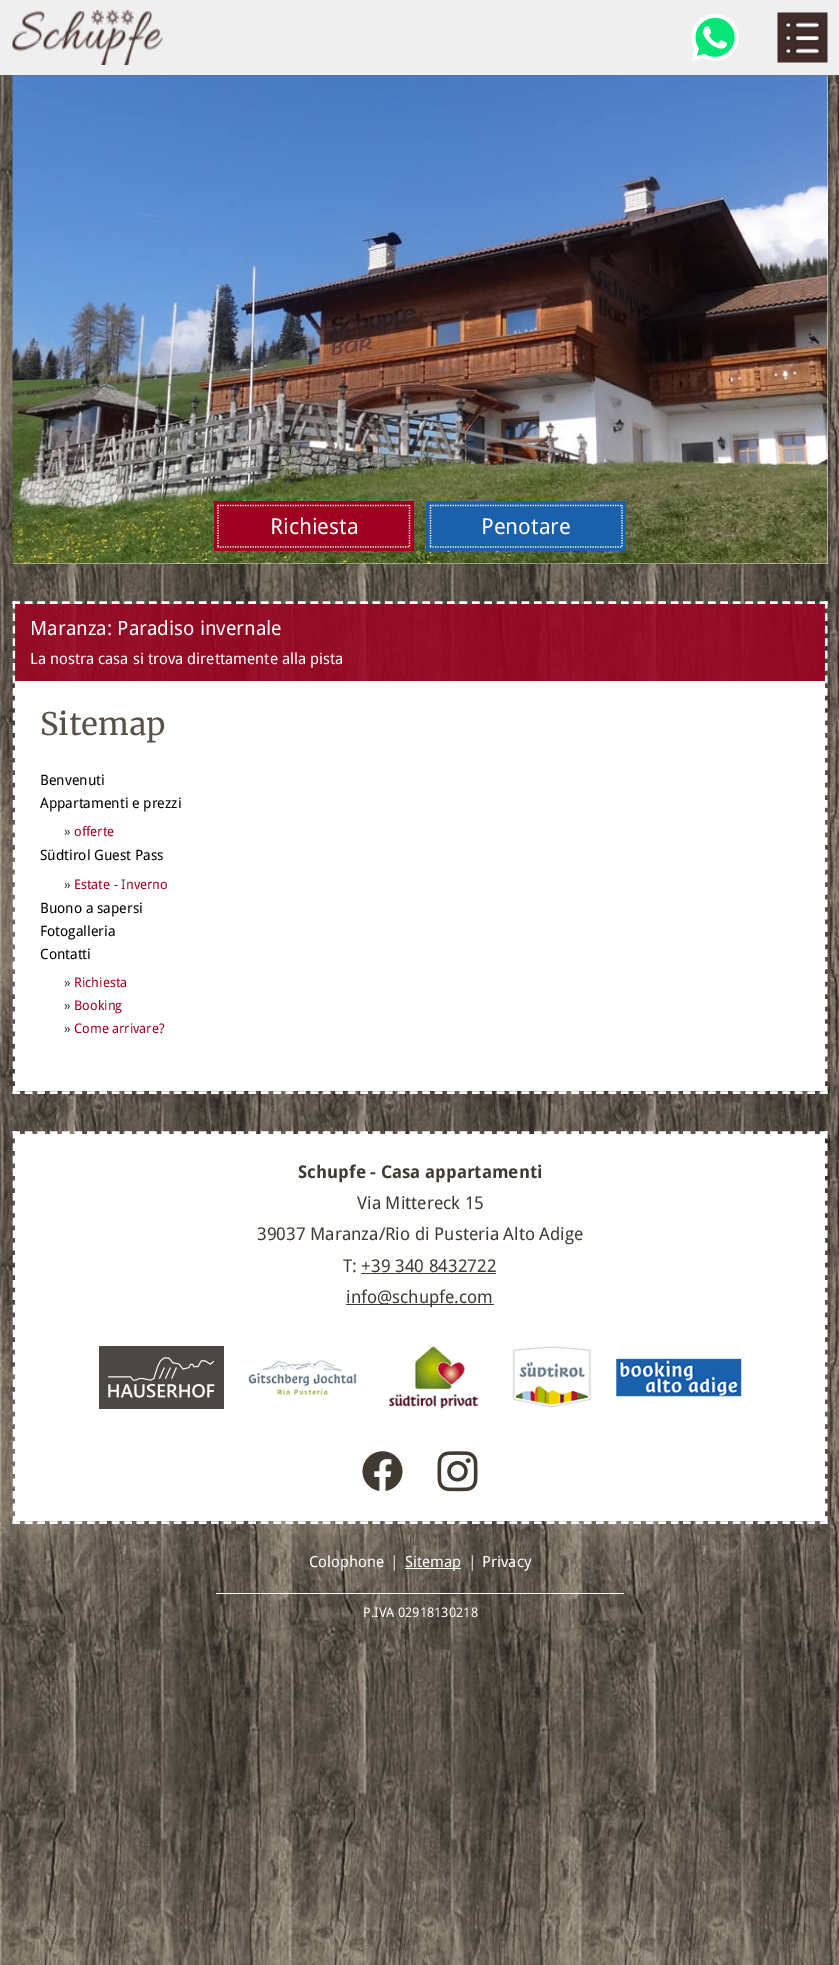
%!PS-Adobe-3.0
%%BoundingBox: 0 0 839 1965
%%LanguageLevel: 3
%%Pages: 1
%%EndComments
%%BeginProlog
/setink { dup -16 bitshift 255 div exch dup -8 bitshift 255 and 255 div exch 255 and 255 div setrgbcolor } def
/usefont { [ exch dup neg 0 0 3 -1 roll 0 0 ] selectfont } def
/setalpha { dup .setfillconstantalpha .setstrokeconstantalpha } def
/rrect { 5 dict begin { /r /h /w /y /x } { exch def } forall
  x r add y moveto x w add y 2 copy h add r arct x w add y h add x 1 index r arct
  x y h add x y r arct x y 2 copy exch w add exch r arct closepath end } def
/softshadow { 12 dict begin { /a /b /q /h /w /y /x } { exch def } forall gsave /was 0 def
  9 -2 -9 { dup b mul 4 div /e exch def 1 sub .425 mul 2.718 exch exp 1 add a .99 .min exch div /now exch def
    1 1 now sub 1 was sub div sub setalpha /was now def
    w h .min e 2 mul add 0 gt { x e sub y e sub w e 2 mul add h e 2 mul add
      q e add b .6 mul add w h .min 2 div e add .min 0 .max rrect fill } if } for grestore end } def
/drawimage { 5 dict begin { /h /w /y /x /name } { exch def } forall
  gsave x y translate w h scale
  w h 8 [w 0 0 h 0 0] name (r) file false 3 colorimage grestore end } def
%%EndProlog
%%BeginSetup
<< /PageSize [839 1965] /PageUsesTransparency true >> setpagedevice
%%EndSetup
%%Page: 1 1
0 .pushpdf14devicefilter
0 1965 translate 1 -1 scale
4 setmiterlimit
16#FFFFFF setink
0 0 839 1965 rectfill
(img1.raw) 0 75 839 1890 drawimage
13 75 815 489 rectfill
(img5.raw) 12 75 816 489 drawimage
16#666666 setink
0 0 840 75 0 1 1 softshadow
16#EFEFEF setink
0 0 839 75 rectfill
(img2.raw) 12 10 151 55 drawimage
(img3.raw) 691 14 48 47 drawimage
(img4.raw) 777 12 51 51 drawimage
16#9F0021 setink
214 501 200 50 rectfill
16#FFFFFF setink
1.2 setlinewidth
[1.25 1.25] 0 setdash
217.5 505.5 moveto 410 505.5 lineto stroke
409.5 505 moveto 409.5 547.5 lineto stroke
217.5 547 moveto 410 547 lineto stroke
218 505 moveto 218 547.5 lineto stroke
/DroidSans-Regular 22 usefont
270 534 moveto (Richiesta) show
16#1B60AB setink
426 501 200 50 rectfill
16#FFFFFF setink
430 505.5 moveto 622.5 505.5 lineto stroke
622 505 moveto 622 547.5 lineto stroke
430 547 moveto 622.5 547 lineto stroke
430.5 505 moveto 430.5 547.5 lineto stroke
481 534 moveto (Penotare) show
2.5 setlinewidth
[7.5 4.92] 0 setdash
12.5 602.5 moveto 827.5 602.5 lineto stroke
[7.5 4.94] 0 setdash
826 601 moveto 826 1094 lineto stroke
[7.5 4.92] 0 setdash
12.5 1092.5 moveto 827.5 1092.5 lineto stroke
[7.5 4.94] 0 setdash
14 601 moveto 14 1094 lineto stroke
0.85 setalpha
16#9F0021 setink
15 604 810 77 rectfill
/DroidSans-Regular 19.75 usefont
1 setalpha
16#FFFFFF setink
30 635 moveto (Maranza: Paradiso invernale) show
/DroidSans-Regular 15.4 usefont
30 664 moveto (La nostra casa si trova direttamente alla pista) show
15 681 810 410 rectfill
/Merriweather-Regular 31 usefont
16#584F46 setink
40 735 moveto (Sitemap) show
/DroidSans-Regular 14.25 usefont
16#000000 setink
40 785 moveto (Benvenuti) show
40 808 moveto (Appartamenti e prezzi) show
/DroidSans-Regular 13.25 usefont
16#403A33 setink
64 836 moveto (») show
16#9F0021 setink
74 836 moveto (offerte) show
/DroidSans-Regular 14.25 usefont
16#000000 setink
40 860 moveto (Südtirol Guest Pass) show
/DroidSans-Regular 13.25 usefont
16#403A33 setink
64 889 moveto (») show
16#9F0021 setink
74 889 moveto (Estate - Inverno) show
/DroidSans-Regular 14.25 usefont
16#000000 setink
[
    [(Buono a sapersi) 40 913]
    [(Fotogalleria) 40 936]
    [(Contatti) 40 959]
] { aload pop moveto show } forall
/DroidSans-Regular 13.25 usefont
16#403A33 setink
64 987 moveto (») show
16#9F0021 setink
74 987 moveto (Richiesta) show
16#403A33 setink
64 1010 moveto (») show
16#9F0021 setink
74 1010 moveto (Booking) show
16#403A33 setink
64 1033 moveto (») show
16#9F0021 setink
74 1033 moveto (Come arrivare?) show
16#FFFFFF setink
[7.5 4.92] 0 setdash
12.5 1132.5 moveto 827.5 1132.5 lineto stroke
826 1131 moveto 826 1524 lineto stroke
12.5 1522.5 moveto 827.5 1522.5 lineto stroke
14 1131 moveto 14 1524 lineto stroke
15 1134 810 387 rectfill
/DroidSans-Bold 17.6 usefont
16#403A33 setink
298 1178 moveto (Schupfe - Casa appartamenti) show
/DroidSans-Regular 17.6 usefont
[
    [(Via Mittereck 15) 357 1209]
    [(39037 Maranza/Rio di Pusteria Alto Adige) 257 1240]
    [(T: +39 340 8432722) 343 1272]
] { aload pop moveto show } forall
361 1273 135 1 rectfill
346 1304 148 1 rectfill
346 1303 moveto (info@schupfe.com) show
(img6.raw) 99 1346 125 63 drawimage
(img7.raw) 248 1360 109 35 drawimage
(img8.raw) 388 1346 91 63 drawimage
(img9.raw) 512 1346 80 62 drawimage
(img10.raw) 616 1358 126 39 drawimage
(img11.raw) 362 1451 41 40 drawimage
(img12.raw) 437 1451 41 41 drawimage
/DroidSans-Regular 15.4 usefont
16#FFFFFF setink
309 1567 moveto (Colophone) show
390 1567 moveto (|) show
405 1568 56 1 rectfill
[
    [(Sitemap) 405 1567]
    [(|) 468 1567]
    [(Privacy) 482 1567]
] { aload pop moveto show } forall
216 1593 408 1 rectfill
/DroidSans-Regular 13.25 usefont
363 1617 moveto (P.IVA 02918130218) show
.poppdf14devicefilter showpage
%%EOF
